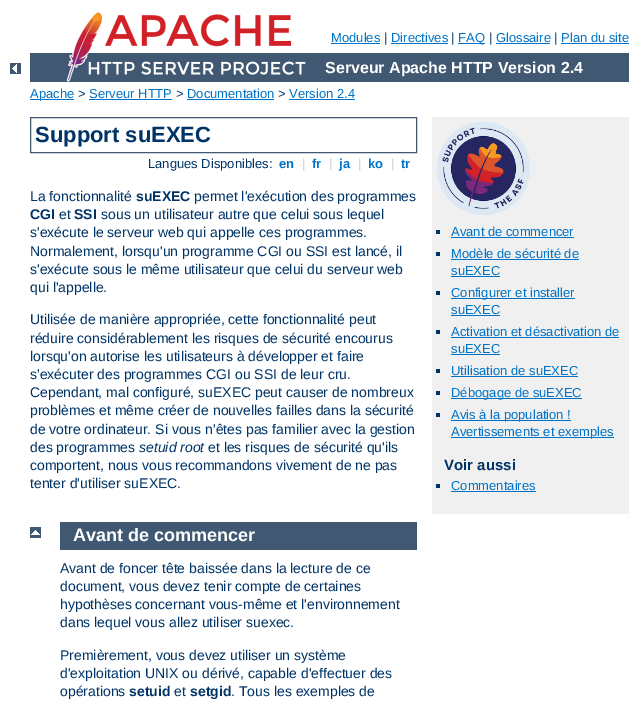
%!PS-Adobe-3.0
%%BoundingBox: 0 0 643 707
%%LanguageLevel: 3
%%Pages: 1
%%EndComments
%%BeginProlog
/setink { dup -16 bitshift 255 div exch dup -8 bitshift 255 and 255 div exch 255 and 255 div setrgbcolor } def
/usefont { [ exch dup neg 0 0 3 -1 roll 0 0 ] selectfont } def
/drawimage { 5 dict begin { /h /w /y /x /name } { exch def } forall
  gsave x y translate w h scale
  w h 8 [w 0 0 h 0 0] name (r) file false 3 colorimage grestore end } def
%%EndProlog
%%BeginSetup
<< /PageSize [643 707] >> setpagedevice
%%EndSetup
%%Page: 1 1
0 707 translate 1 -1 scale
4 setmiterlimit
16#FFFFFF setink
0 0 643 707 rectfill
(img1.raw) 10 63 11 11 drawimage
16#405871 setink
30 53 599 29 rectfill
(img2.raw) 67 12 239 70 drawimage
/LiberationSans-Regular 13 usefont
16#0073C7 setink
331 42 moveto (Modules) show
331 43 49 1 rectfill
16#003366 setink
384 42 moveto (|) show
16#0073C7 setink
391 42 moveto (Directives) show
391 43 57 1 rectfill
16#003366 setink
451 42 moveto (|) show
16#0073C7 setink
458 43 27 1 rectfill
458 42 moveto (FAQ) show
16#003366 setink
489 42 moveto (|) show
16#0073C7 setink
496 42 moveto (Glossaire) show
496 43 54 1 rectfill
16#003366 setink
554 42 moveto (|) show
16#0073C7 setink
561 42 moveto (Plan du site) show
561 43 68 1 rectfill
/LiberationSans-Bold 16 usefont
16#FFFFFF setink
325 73 moveto (Serveur Apache HTTP Version 2.4) show
16#0073C7 setink
30 99 44 1 rectfill
/LiberationSans-Regular 13 usefont
30 98 moveto (Apache) show
16#003366 setink
78 98 moveto (>) show
16#0073C7 setink
89 98 moveto (Serveur HTTP) show
89 99 83 1 rectfill
16#003366 setink
176 98 moveto (>) show
16#0073C7 setink
187 98 moveto (Documentation) show
187 99 87 1 rectfill
16#003366 setink
278 98 moveto (>) show
16#0073C7 setink
289 98 moveto (Version 2.4) show
289 99 66 1 rectfill
16#405871 setink
30.5 117.5 386 35 rectstroke
/LiberationSans-Bold 22 usefont
16#003366 setink
35 142 moveto (Support suEXEC) show
/LiberationSans-Regular 13 usefont
148 168 moveto (Langues Disponibles:) show
/LiberationSans-Bold 13 usefont
16#0073C7 setink
279 168 moveto (en) show
/LiberationSans-Regular 13 usefont
16#CCCCCC setink
302 168 moveto (|) show
/LiberationSans-Bold 13 usefont
16#0073C7 setink
312 168 moveto (fr) show
/LiberationSans-Regular 13 usefont
16#CCCCCC setink
329 168 moveto (|) show
/LiberationSans-Bold 13 usefont
16#0073C7 setink
339 168 moveto (ja) show
/LiberationSans-Regular 13 usefont
16#CCCCCC setink
358 168 moveto (|) show
/LiberationSans-Bold 13 usefont
16#0073C7 setink
368 168 moveto (ko) show
/LiberationSans-Regular 13 usefont
16#CCCCCC setink
391 168 moveto (|) show
/LiberationSans-Bold 13 usefont
16#0073C7 setink
401 168 moveto (tr) show
/LiberationSans-Regular 14 usefont
16#003366 setink
30 201 moveto (La fonctionnalité) show
/LiberationSans-Bold 14 usefont
136 201 moveto (suEXEC) show
/LiberationSans-Regular 14 usefont
194 201 moveto (permet l'exécution des programmes) show
/LiberationSans-Bold 14 usefont
30 219 moveto (CGI) show
/LiberationSans-Regular 14 usefont
59 219 moveto (et) show
/LiberationSans-Bold 14 usefont
74 219 moveto (SSI) show
/LiberationSans-Regular 14 usefont
[
    [(sous un utilisateur autre que celui sous lequel) 101 219]
    [(s'exécute le serveur web qui appelle ces programmes.) 30 237]
    [(Normalement, lorsqu'un programme CGI ou SSI est lancé, il) 30 256]
    [(s'exécute sous le même utilisateur que celui du serveur web) 30 274]
    [(qui l'appelle.) 30 292]
    [(Utilisée de manière appropriée, cette fonctionnalité peut) 30 324]
    [(réduire considérablement les risques de sécurité encourus) 30 343]
    [(lorsqu'on autorise les utilisateurs à développer et faire) 30 361]
    [(s'exécuter des programmes CGI ou SSI de leur cru.) 30 379]
    [(Cependant, mal configuré, suEXEC peut causer de nombreux) 30 397]
    [(problèmes et même créer de nouvelles failles dans la sécurité) 30 415]
    [(de votre ordinateur. Si vous n'êtes pas familier avec la gestion) 30 434]
    [(des programmes) 30 452]
] { aload pop moveto show } forall
/LiberationSans-Italic 14 usefont
139 452 moveto (setuid root) show
/LiberationSans-Regular 14 usefont
[
    [(et les risques de sécurité qu'ils) 208 452]
    [(comportent, nous vous recommandons vivement de ne pas) 30 470]
    [(tenter d'utiliser suEXEC.) 30 488]
] { aload pop moveto show } forall
16#F0F0F0 setink
432 117 197 397 rectfill
(img3.raw) 436 121 95 95 drawimage
16#003366 setink
436 230 4 4 rectfill
/LiberationSans-Regular 13 usefont
16#0073C7 setink
451 236 moveto (Avant de commencer) show
451 237 123 1 rectfill
16#003366 setink
436 252 4 4 rectfill
16#0073C7 setink
451 258 moveto (Modèle de sécurité de) show
451 259 128 1 rectfill
451 275 moveto (suEXEC) show
[
    [451 276 49 1 16#0073C7]
    [436 291 4 4 16#003366]
    [451 298 124 1 16#0073C7]
] { aload pop setink rectfill } forall
451 297 moveto (Configurer et installer) show
451 314 moveto (suEXEC) show
451 315 49 1 rectfill
16#003366 setink
436 330 4 4 rectfill
16#0073C7 setink
451 336 moveto (Activation et désactivation de) show
451 337 168 1 rectfill
451 353 moveto (suEXEC) show
451 354 49 1 rectfill
16#003366 setink
436 369 4 4 rectfill
16#0073C7 setink
451 375 moveto (Utilisation de suEXEC) show
[
    [451 376 127 1 16#0073C7]
    [436 391 4 4 16#003366]
    [451 398 131 1 16#0073C7]
] { aload pop setink rectfill } forall
451 397 moveto (Débogage de suEXEC) show
16#003366 setink
436 413 4 4 rectfill
16#0073C7 setink
451 420 120 1 rectfill
451 419 moveto (Avis à la population !) show
451 437 163 1 rectfill
451 436 moveto (Avertissements et exemples) show
/LiberationSans-Bold 15 usefont
16#003366 setink
444 470 moveto (Voir aussi) show
436 484 4 4 rectfill
/LiberationSans-Regular 13 usefont
16#0073C7 setink
451 490 moveto (Commentaires) show
451 491 85 1 rectfill
(img4.raw) 30 527 11 11 drawimage
16#405871 setink
60 522 357 28 rectfill
/LiberationSans-Bold 18 usefont
16#FFFFFF setink
73 541 moveto (Avant de commencer) show
/LiberationSans-Regular 14 usefont
16#003366 setink
[
    [(Avant de foncer tête baissée dans la lecture de ce) 60 573]
    [(document, vous devez tenir compte de certaines) 60 591]
    [(hypothèses concernant vous-même et l'environnement) 60 609]
    [(dans lequel vous allez utiliser suexec.) 60 627]
    [(Premièrement, vous devez utiliser un système) 60 660]
    [(d'exploitation UNIX ou dérivé, capable d'effectuer des) 60 678]
    [(opérations) 60 696]
] { aload pop moveto show } forall
/LiberationSans-Bold 14 usefont
129 696 moveto (setuid) show
/LiberationSans-Regular 14 usefont
174 696 moveto (et) show
/LiberationSans-Bold 14 usefont
190 696 moveto (setgid) show
/LiberationSans-Regular 14 usefont
231 696 moveto (. Tous les exemples de) show
showpage
%%EOF
